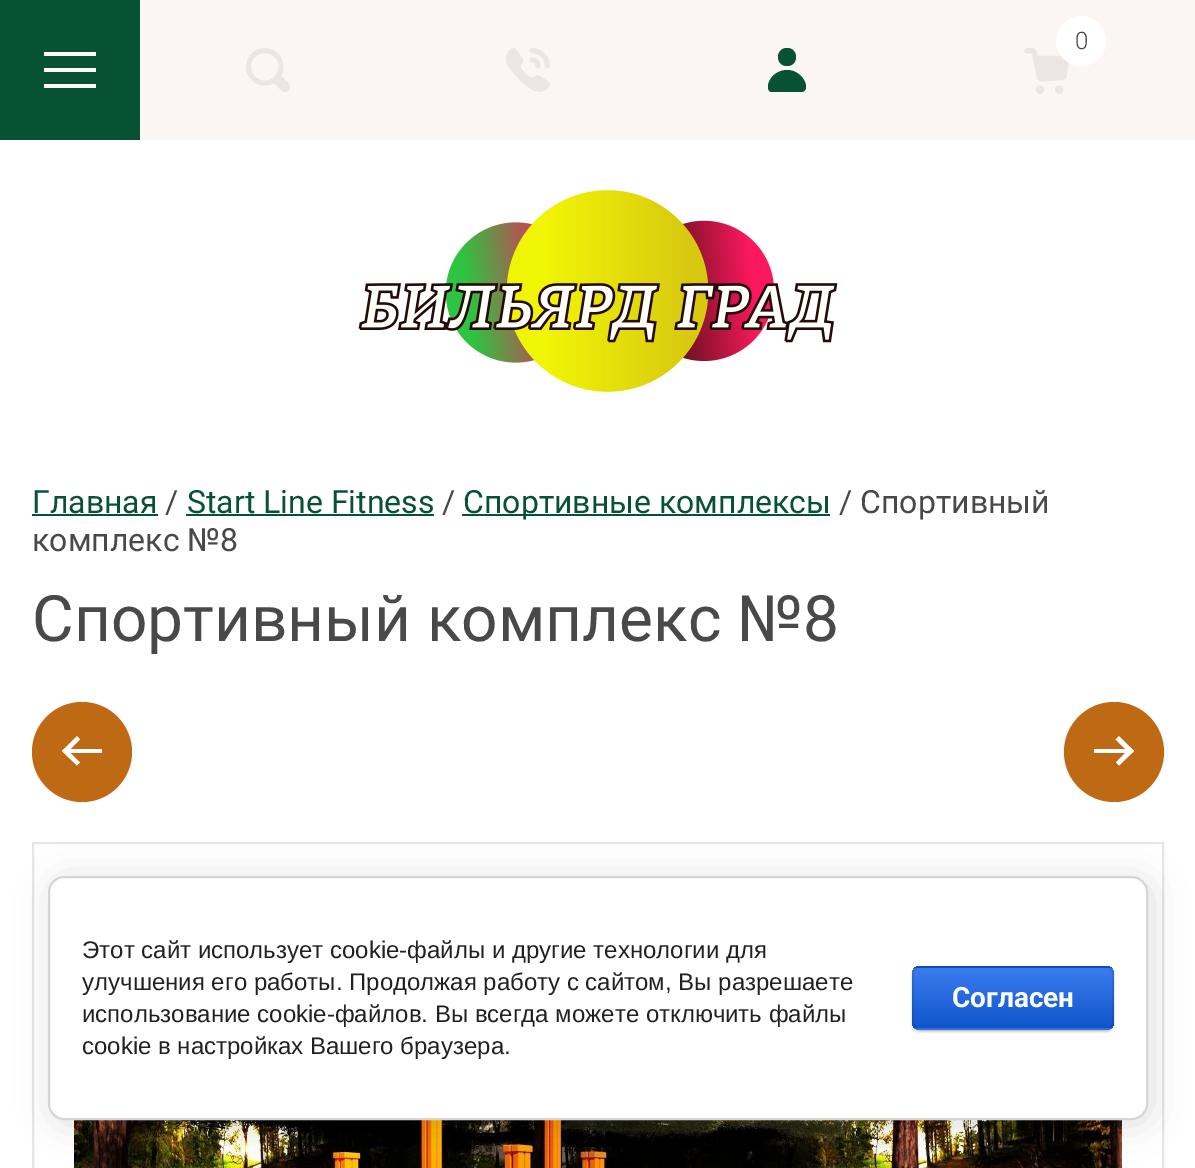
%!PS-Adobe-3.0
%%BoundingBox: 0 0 1195 1168
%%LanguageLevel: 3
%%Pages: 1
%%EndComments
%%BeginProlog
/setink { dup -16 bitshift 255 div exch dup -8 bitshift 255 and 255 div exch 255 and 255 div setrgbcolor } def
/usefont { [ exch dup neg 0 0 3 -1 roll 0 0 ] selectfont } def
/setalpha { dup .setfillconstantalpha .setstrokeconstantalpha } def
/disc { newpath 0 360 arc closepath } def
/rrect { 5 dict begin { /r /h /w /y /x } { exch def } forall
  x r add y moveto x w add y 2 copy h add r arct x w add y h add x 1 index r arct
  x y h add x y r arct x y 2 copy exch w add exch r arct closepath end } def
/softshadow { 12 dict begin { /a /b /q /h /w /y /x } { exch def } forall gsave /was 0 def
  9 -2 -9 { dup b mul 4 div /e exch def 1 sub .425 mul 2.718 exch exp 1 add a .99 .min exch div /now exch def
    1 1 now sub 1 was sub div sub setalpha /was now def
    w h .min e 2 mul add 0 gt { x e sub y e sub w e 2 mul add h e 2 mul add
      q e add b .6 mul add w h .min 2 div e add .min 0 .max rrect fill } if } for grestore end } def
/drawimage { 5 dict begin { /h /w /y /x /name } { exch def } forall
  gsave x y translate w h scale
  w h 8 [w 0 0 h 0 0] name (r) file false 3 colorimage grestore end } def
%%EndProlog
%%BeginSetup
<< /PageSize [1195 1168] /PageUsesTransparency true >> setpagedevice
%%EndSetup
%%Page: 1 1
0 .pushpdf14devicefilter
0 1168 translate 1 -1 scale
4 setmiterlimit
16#FFFFFF setink
0 0 1195 1168 rectfill
16#FBF5F3 setink
140 0 1055 140 rectfill
16#075233 setink
0 0 140 140 rectfill
16#FFFFFF setink
44 52 moveto 96 52 lineto 96 56 lineto 44 56 lineto closepath 44 68 moveto 96 68 lineto 96 72 lineto 44 72 lineto closepath 44 84 moveto 96 84 lineto 96 88 lineto 44 88 lineto closepath fill
(img1.raw) 1024 48 45 46 drawimage
1081 41 25 disc fill
/Roboto-Light 24 usefont
16#494949 setink
1075 49 moveto (0) show
(img2.raw) 246 48 44 44 drawimage
(img3.raw) 506 48 44 44 drawimage
gsave
768 48 38 44 rectclip
16#075233 setink
787 66 moveto 799 66 799 48 787 48 curveto 775 48 775 66 787 66 curveto closepath 787 70 moveto 782 70 777 72 774 75 curveto 770 78 764 89 771 92 curveto 801 92 lineto 812 92 804 70 787 70 curveto closepath fill
grestore
(img4.raw) 358 190 480 202 drawimage
/Roboto-Regular 32 usefont
16#075233 setink
32 513 moveto (Главная) show
32 514 126 2 rectfill
16#494949 setink
165 513 moveto (/) show
16#075233 setink
187 513 moveto (Start Line Fitness) show
186 514 248 2 rectfill
16#494949 setink
442 513 moveto (/) show
16#075233 setink
462 514 368 2 rectfill
463 513 moveto (Спортивные комплексы) show
16#494949 setink
839 513 moveto (/ Спортивный) show
32 551 moveto (комплекс №8) show
/Roboto-Regular 64 usefont
32 641 moveto (Спортивный комплекс №8) show
16#BE6913 setink
82 752 50 disc fill
16#FFFFFF setink
66 749 36 4 rectfill
77 736 moveto 80 739.5 lineto 65.5 754 lineto 62 751 lineto closepath fill
80 762.5 moveto 77 765.5 lineto 62 751 lineto 65.5 748 lineto closepath fill
16#BE6913 setink
1114 752 50 disc fill
16#FFFFFF setink
1094 749 36 4 rectfill
1119 765.5 moveto 1116 762.5 lineto 1130.5 747.5 lineto 1134 751 lineto closepath fill
1115.5 739.5 moveto 1119 736 lineto 1134 751 lineto 1130.5 754 lineto closepath fill
16#E6E6E6 setink
2 setlinewidth
33 843 1130 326 rectstroke
(img5.raw) 74 1120 1048 48 drawimage
16#000000 setink
52 880 1100 244 16 18 0.14 softshadow
16#FFFFFF setink
49 877 1098 242 15 rrect gsave fill grestore
16#D6D6D6 setink
stroke
/LiberationSans-Regular 24 usefont
16#212121 setink
[
    [(Этот сайт использует cookie-файлы и другие технологии для) 82 958]
    [(улучшения его работы. Продолжая работу с сайтом, Вы разрешаете) 82 990]
    [(использование cookie-файлов. Вы всегда можете отключить файлы) 82 1022]
    [(cookie в настройках Вашего браузера.) 82 1054]
] { aload pop moveto show } forall
16#000000 setink
912 968 202 64 8 1 0.2 softshadow
gsave
912 966 202 64 8 rrect clip newpath
gsave 912 966 moveto 1114 966 lineto 1114 968 lineto 912 968 lineto closepath clip newpath
<< /ShadingType 2 /ColorSpace /DeviceRGB /Coords [1013 908 1013 968] /Extend [true true] /Function << /FunctionType 2 /Domain [0 1] /C0 [0.231 0.486 0.937] /C1 [0.067 0.333 0.8] /N 1 >> >> shfill grestore
gsave 912 968 moveto 1114 968 lineto 1114 1028 lineto 912 1028 lineto closepath clip newpath
<< /ShadingType 2 /ColorSpace /DeviceRGB /Coords [1013 968 1013 1028] /Extend [true true] /Function << /FunctionType 2 /Domain [0 1] /C0 [0.231 0.486 0.937] /C1 [0.067 0.333 0.8] /N 1 >> >> shfill grestore
gsave 912 1028 moveto 1114 1028 lineto 1114 1030 lineto 912 1030 lineto closepath clip newpath
<< /ShadingType 2 /ColorSpace /DeviceRGB /Coords [1013 1028 1013 1088] /Extend [true true] /Function << /FunctionType 2 /Domain [0 1] /C0 [0.231 0.486 0.937] /C1 [0.067 0.333 0.8] /N 1 >> >> shfill grestore
grestore
0.1 setalpha
913 967 200 62 7 rrect stroke
/Roboto-Bold 28 usefont
1 setalpha
16#FFFFFF setink
952 1007 moveto (Согласен) show
.poppdf14devicefilter showpage
%%EOF
